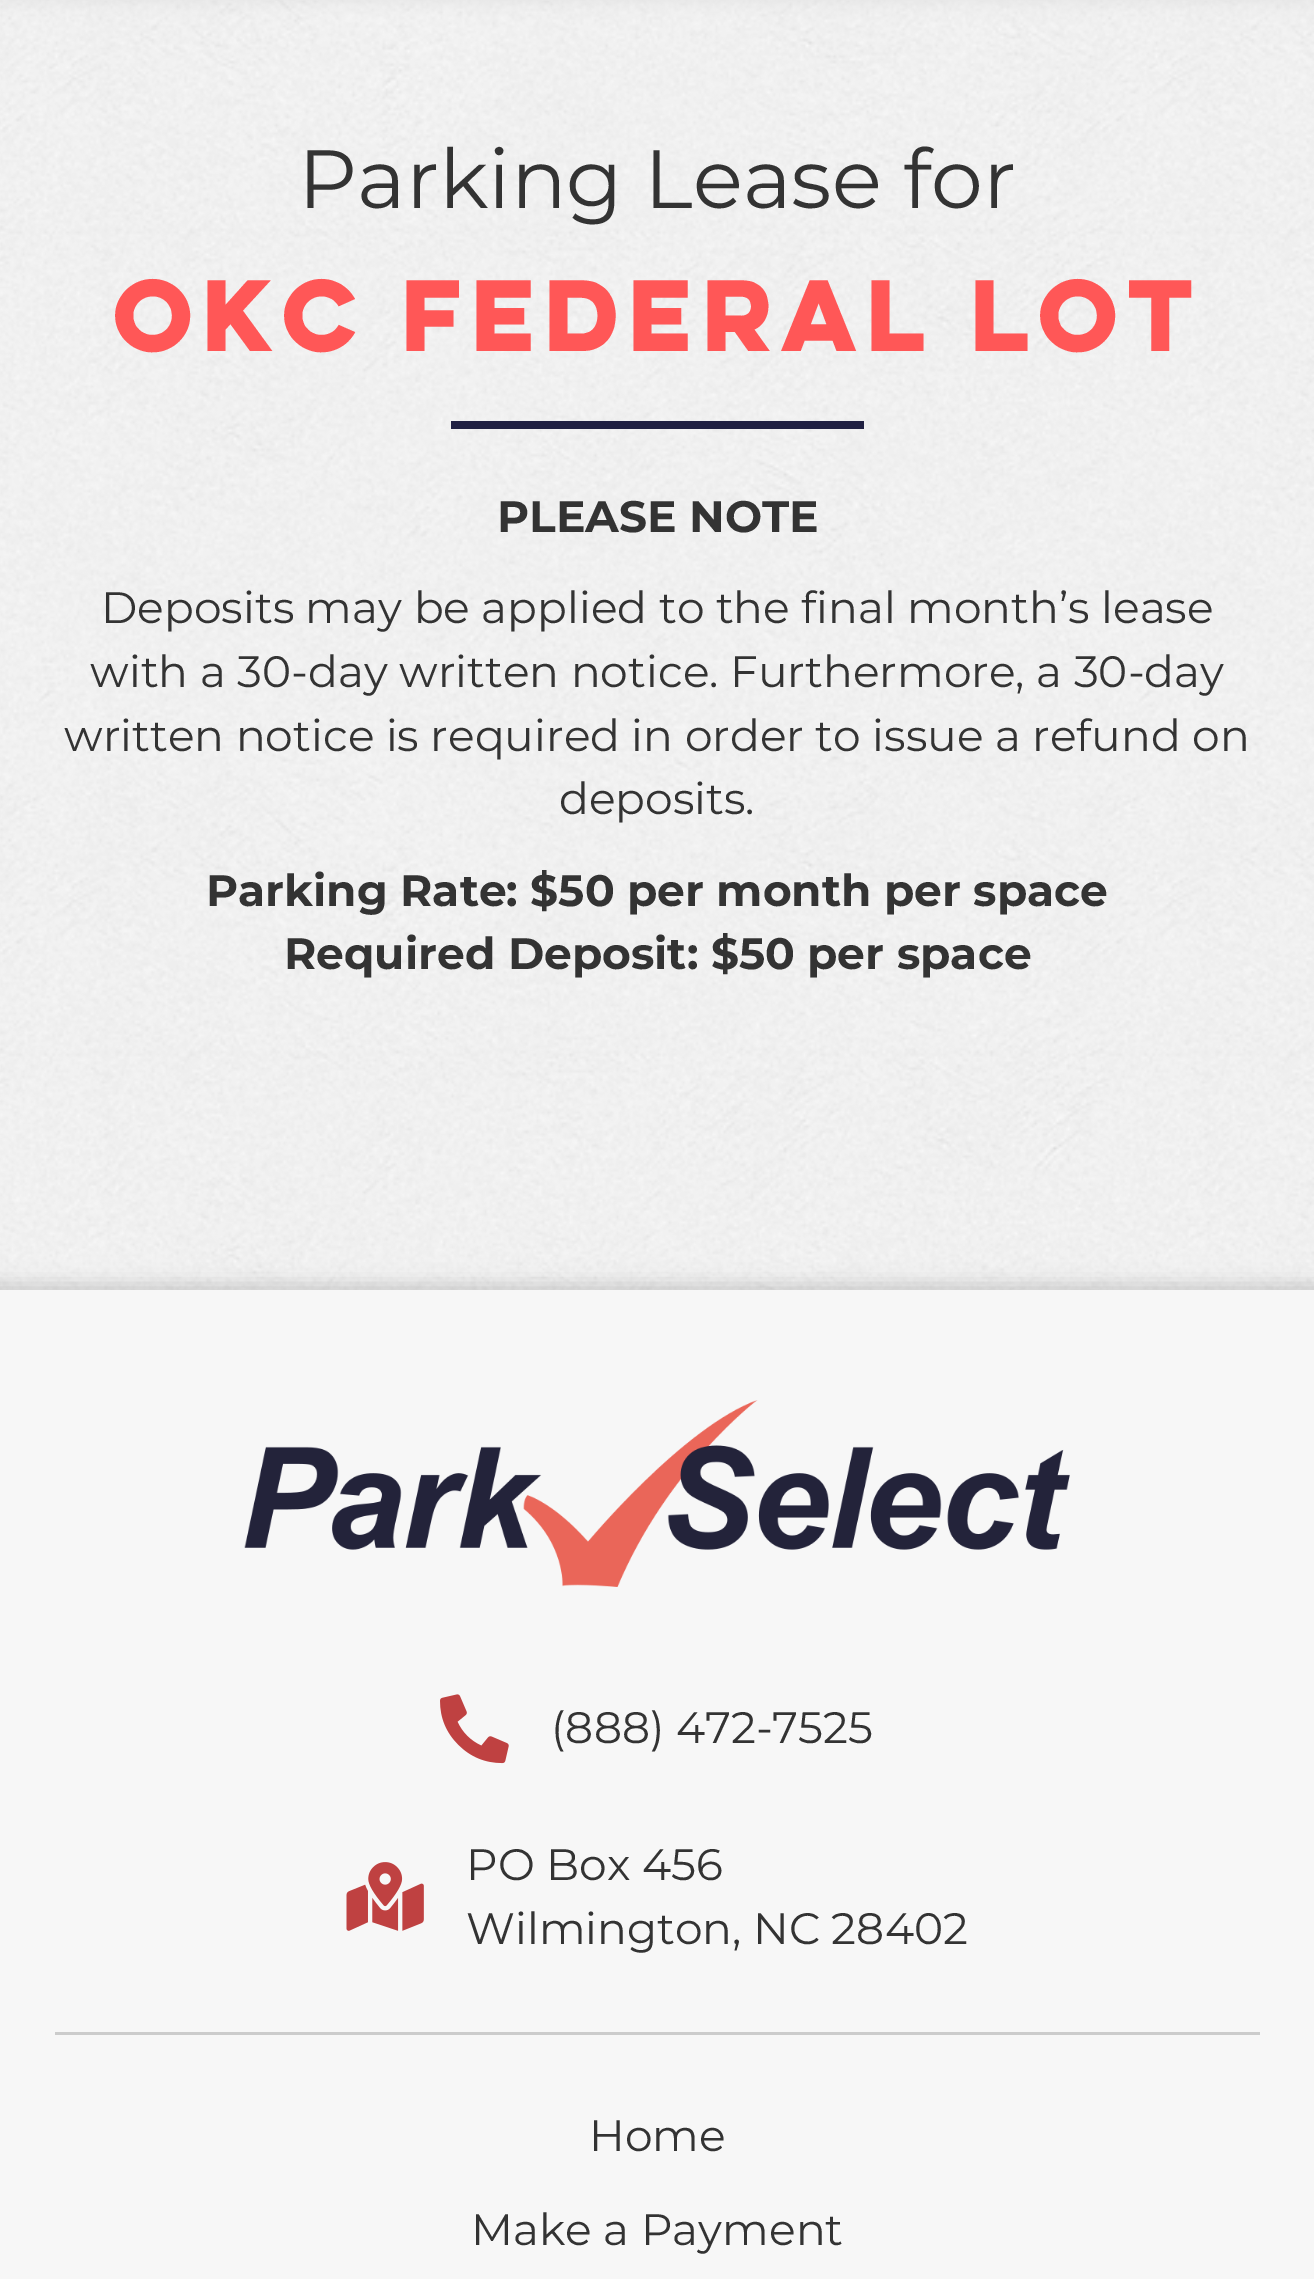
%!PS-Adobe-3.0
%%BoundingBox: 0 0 1314 2279
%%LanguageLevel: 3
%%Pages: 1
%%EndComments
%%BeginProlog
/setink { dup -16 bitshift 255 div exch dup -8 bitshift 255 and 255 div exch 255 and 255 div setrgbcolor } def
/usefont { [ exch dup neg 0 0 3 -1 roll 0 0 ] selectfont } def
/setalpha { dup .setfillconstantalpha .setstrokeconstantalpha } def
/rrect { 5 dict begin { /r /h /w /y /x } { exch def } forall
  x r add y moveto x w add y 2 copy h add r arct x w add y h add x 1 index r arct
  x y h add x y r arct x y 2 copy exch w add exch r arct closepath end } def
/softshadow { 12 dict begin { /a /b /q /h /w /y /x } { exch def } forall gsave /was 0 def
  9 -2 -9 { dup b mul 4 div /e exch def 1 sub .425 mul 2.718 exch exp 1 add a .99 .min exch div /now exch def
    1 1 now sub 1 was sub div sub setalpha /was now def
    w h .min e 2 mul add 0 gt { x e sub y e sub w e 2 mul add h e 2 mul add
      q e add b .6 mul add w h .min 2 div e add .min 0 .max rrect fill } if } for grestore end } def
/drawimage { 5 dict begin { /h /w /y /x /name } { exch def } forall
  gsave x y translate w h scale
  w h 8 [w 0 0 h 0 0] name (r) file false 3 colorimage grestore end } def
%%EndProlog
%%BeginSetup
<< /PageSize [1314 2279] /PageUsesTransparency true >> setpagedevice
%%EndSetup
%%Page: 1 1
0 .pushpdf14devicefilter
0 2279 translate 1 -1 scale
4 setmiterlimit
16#FFFFFF setink
0 0 1314 2279 rectfill
16#858585 setink
-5 -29 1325 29 0 9.5 0.2 softshadow
(img1.raw) 0 0 1314 1290 drawimage
/Montserrat-Regular 82.5 usefont
16#333333 setink
298 208 moveto (Parking Lease for) show
/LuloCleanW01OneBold-Bold 90.75 usefont
16#FF5757 setink
113 351 moveto -11 0 (OKC FEDERAL LOT) ashow
16#202042 setink
451 421 413 8 rectfill
/Montserrat-Bold 44 usefont
16#333333 setink
497 532 moveto (PLEASE NOTE) show
/Montserrat-Regular 44 usefont
[
    [(Deposits may be applied to the final month’s lease) 101 623]
    [(with a 30-day written notice. Furthermore, a 30-day) 90 687]
    [(written notice is required in order to issue a refund on) 64 751]
    [(deposits.) 559 814]
] { aload pop moveto show } forall
/Montserrat-Bold 44 usefont
206 906 moveto (Parking Rate: $50 per month per space) show
284 969 moveto (Required Deposit: $50 per space) show
-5 1284 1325 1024 0 9.5 0.2 softshadow
16#F7F7F7 setink
0 1290 1314 989 rectfill
(img2.raw) 244 1400 826 187 drawimage
(img3.raw) 440 1694 69 70 drawimage
/Montserrat-Regular 44 usefont
16#333333 setink
551 1743 moveto (\(888\) 472-7525) show
(img4.raw) 346 1862 78 69 drawimage
466 1880 moveto (PO Box 456) show
466 1944 moveto (Wilmington, NC 28402) show
16#CCCCCC setink
55 2032 1205 3 rectfill
16#333333 setink
589 2151 moveto (Home) show
471 2245 moveto (Make a Payment) show
.poppdf14devicefilter showpage
%%EOF
